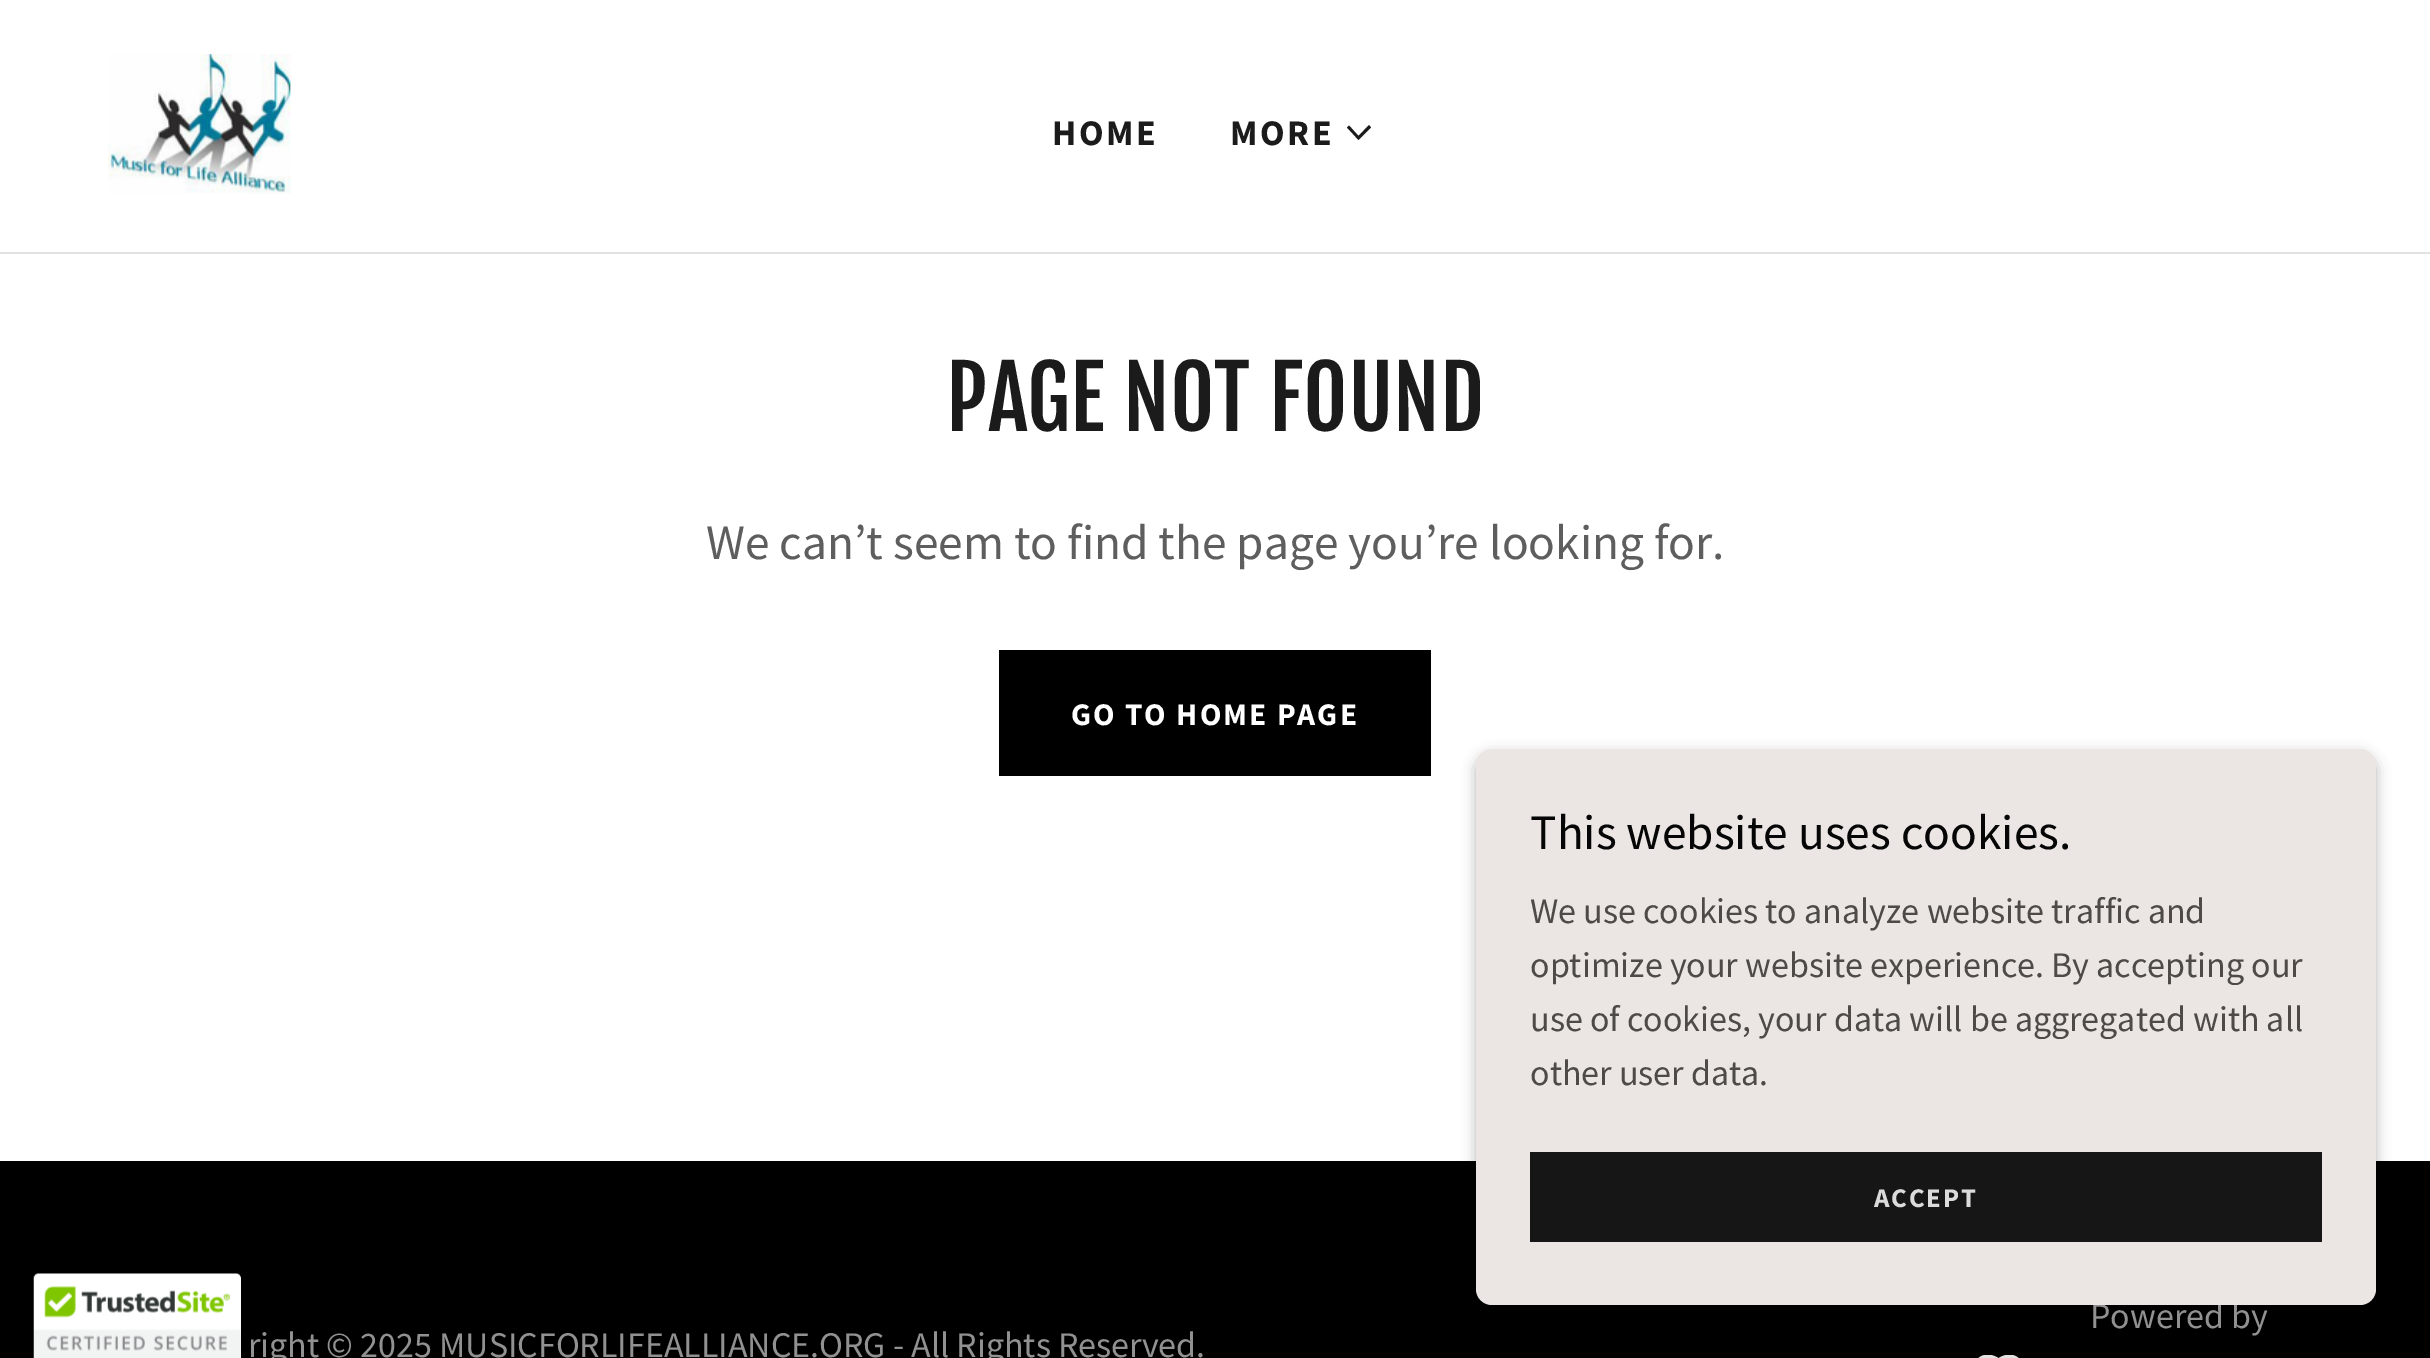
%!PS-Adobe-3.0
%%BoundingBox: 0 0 2430 1358
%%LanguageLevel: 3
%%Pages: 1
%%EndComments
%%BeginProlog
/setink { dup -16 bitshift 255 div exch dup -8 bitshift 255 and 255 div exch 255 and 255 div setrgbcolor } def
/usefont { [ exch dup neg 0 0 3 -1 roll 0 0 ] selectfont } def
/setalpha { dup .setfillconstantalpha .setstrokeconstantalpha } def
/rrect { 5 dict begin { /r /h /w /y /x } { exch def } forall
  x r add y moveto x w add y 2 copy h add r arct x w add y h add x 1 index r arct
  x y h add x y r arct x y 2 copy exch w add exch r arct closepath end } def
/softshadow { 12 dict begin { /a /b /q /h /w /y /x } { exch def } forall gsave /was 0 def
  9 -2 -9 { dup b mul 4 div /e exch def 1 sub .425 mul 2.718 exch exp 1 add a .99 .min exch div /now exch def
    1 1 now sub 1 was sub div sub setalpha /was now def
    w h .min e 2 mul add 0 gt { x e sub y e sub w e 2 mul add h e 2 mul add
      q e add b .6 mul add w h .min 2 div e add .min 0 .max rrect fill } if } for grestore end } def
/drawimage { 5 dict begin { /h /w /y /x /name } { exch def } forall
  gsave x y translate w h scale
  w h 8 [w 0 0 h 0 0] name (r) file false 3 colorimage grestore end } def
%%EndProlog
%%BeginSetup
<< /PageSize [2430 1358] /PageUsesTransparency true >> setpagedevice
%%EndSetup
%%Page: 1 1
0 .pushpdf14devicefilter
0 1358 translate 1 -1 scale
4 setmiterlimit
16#000000 setink
0 0 2430 1358 rectfill
(img1.raw) 33 1273 208 85 drawimage
16#FFFFFF setink
0 0 2430 1161 rectfill
(img2.raw) 108 54 183 140 drawimage
/SourceSansPro-Bold 36 usefont
16#1B1B1B setink
1052 145 moveto 2.5 0 (HOME) ashow
1230 145 moveto 2.5 0 (MORE) ashow
1369 125 moveto 1358.5 136 lineto 1349 125.5 lineto 1347 127.5 lineto 1358.5 140 lineto 1371 127.5 lineto closepath eofill
16#E2E2E2 setink
0 252 2430 2 rectfill
/FjallaOne-Regular 85.5 usefont
16#1B1B1B setink
946 431 moveto (PAGE NOT FOUND) show
/SourceSansPro-Regular 49.5 usefont
16#5E5E5E setink
706 559 moveto (We can’t seem to find the page you’re looking for.) show
16#000000 setink
999 650 432 126 rectfill
/SourceSansPro-Bold 31.5 usefont
16#FFFFFF setink
1071 725 moveto 2 0 (GO TO HOME PAGE) ashow
16#000000 setink
1476 754 900 556 16 7 0.3 softshadow
/SourceSansPro-Regular 36 usefont
16#919191 setink
2090 1328 moveto (Powered by) show
16#EBE6E3 setink
1476 749 900 556 16 rrect fill
/SourceSansPro-Regular 49.5 usefont
16#060606 setink
1530 849 moveto (This website uses cookies.) show
/SourceSansPro-Regular 36 usefont
16#4D4A48 setink
[
    [(We use cookies to analyze website traffic and) 1530 923]
    [(optimize your website experience. By accepting our) 1530 977]
    [(use of cookies, your data will be aggregated with all) 1530 1031]
    [(other user data.) 1530 1085]
] { aload pop moveto show } forall
16#161616 setink
1530 1152 792 90 rectfill
/SourceSansPro-Bold 27 usefont
16#DBDBDB setink
1874 1207 moveto 1.75 0 (ACCEPT) ashow
(img3.raw) 1978 1355 41 3 drawimage
/SourceSansPro-Regular 36 usefont
16#919191 setink
248 1357 moveto (right © 2025 MUSICFORLIFEALLIANCE.ORG - All Rights Reserved.) show
.poppdf14devicefilter showpage
%%EOF
